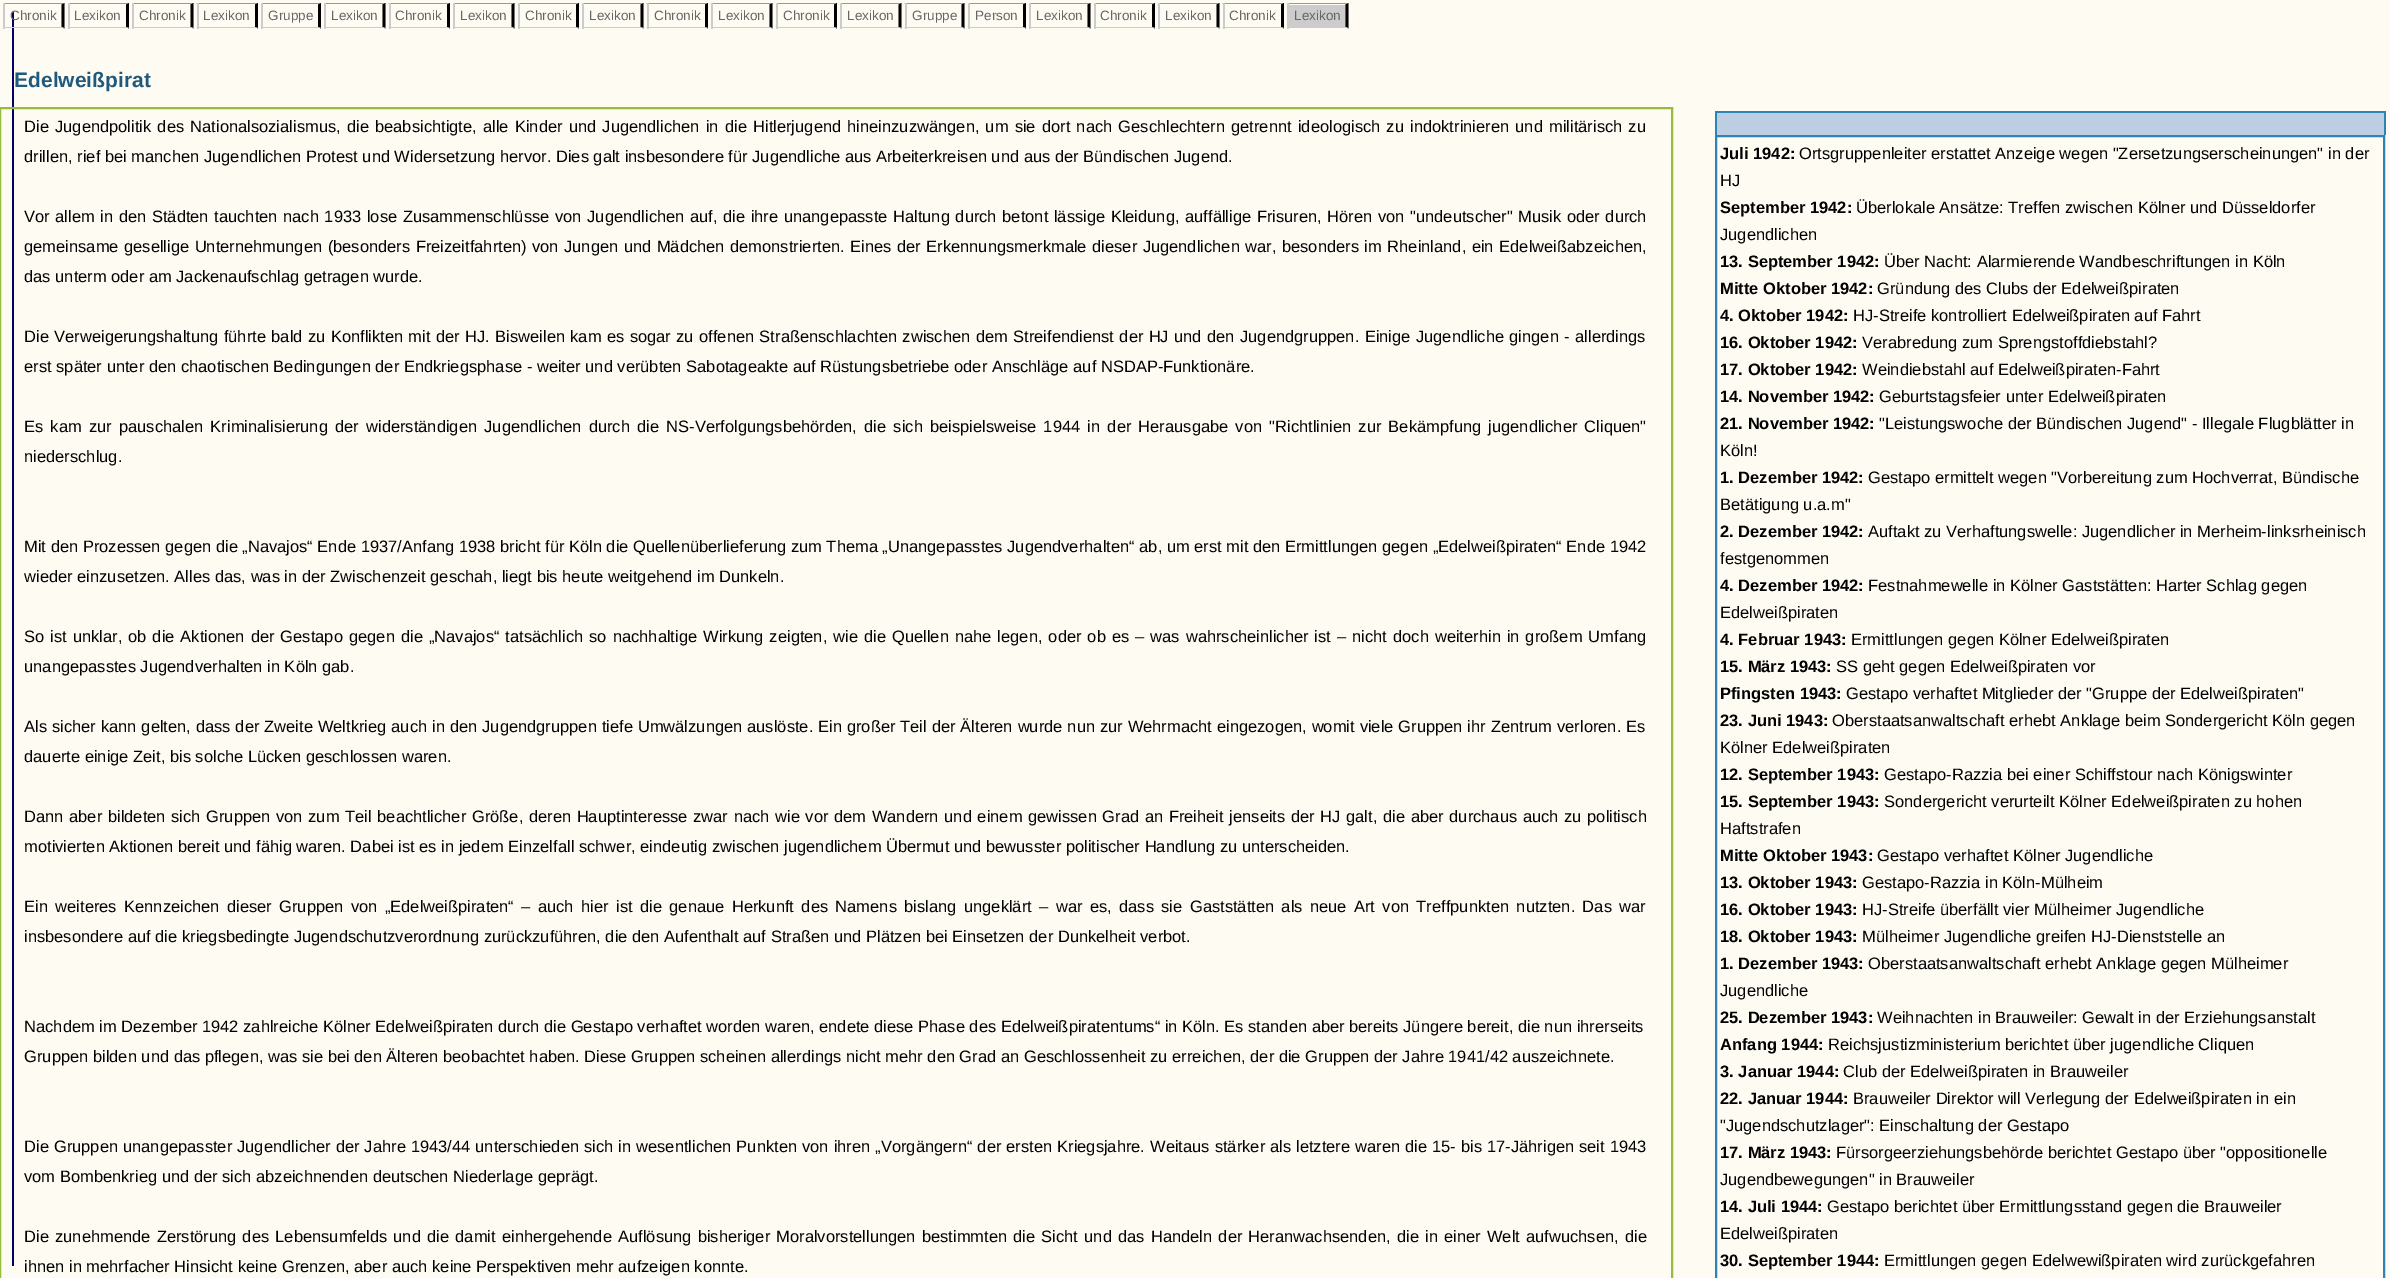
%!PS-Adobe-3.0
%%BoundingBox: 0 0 2390 1278
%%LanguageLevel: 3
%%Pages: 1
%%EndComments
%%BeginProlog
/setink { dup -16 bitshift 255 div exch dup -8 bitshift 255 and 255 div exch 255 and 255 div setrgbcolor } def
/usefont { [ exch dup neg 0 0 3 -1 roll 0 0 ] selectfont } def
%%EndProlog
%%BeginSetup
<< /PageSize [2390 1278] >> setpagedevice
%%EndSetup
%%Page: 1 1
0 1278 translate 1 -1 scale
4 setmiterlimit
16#FEFBF3 setink
0 0 2390 1278 rectfill
16#000066 setink
12 12 2 1254 rectfill
16#999999 setink
3 3 moveto 64 3 lineto 62 4 lineto 4 4 lineto closepath fill
16#000000 setink
64.5 3 moveto 64.5 28.5 lineto 61.5 27 lineto 61.5 4.5 lineto closepath fill
16#CCCCCC setink
64 28 moveto 3 28 lineto 4 27 lineto 62 27 lineto closepath fill
3 3 2 26 rectfill
/LiberationSans-Regular 13.5 usefont
16#666666 setink
10 20 moveto (Chronik) show
16#999999 setink
68 3 moveto 129 3 lineto 126 4 lineto 69 4 lineto closepath fill
16#000000 setink
129 3 moveto 129 28.5 lineto 126 27 lineto 126 4.5 lineto closepath fill
16#CCCCCC setink
129 28 moveto 68 28 lineto 69 27 lineto 126 27 lineto closepath fill
68 3 2 26 rectfill
16#666666 setink
74 20 moveto (Lexikon) show
16#999999 setink
132 3 moveto 194 3 lineto 190 4 lineto 134 4 lineto closepath fill
16#000000 setink
193.5 3 moveto 193.5 28.5 lineto 190.5 27 lineto 190.5 4.5 lineto closepath fill
16#CCCCCC setink
194 28 moveto 132 28 lineto 134 27 lineto 190 27 lineto closepath fill
132 3 2 26 rectfill
16#666666 setink
139 20 moveto (Chronik) show
16#999999 setink
196 3 moveto 258 3 lineto 255 4 lineto 198 4 lineto closepath fill
16#000000 setink
258 3 moveto 258 28.5 lineto 255 27 lineto 255 4.5 lineto closepath fill
16#CCCCCC setink
258 28 moveto 196 28 lineto 198 27 lineto 255 27 lineto closepath fill
197 3 2 26 rectfill
16#666666 setink
203 20 moveto (Lexikon) show
16#999999 setink
261 3 moveto 321 3 lineto 318 4 lineto 262 4 lineto closepath fill
16#000000 setink
321 3 moveto 321 28.5 lineto 318 27 lineto 318 4.5 lineto closepath fill
16#CCCCCC setink
321 28 moveto 261 28 lineto 262 27 lineto 318 27 lineto closepath fill
261 3 2 26 rectfill
16#666666 setink
268 20 moveto (Gruppe) show
16#999999 setink
324 3 moveto 386 3 lineto 382 4 lineto 326 4 lineto closepath fill
16#000000 setink
385.5 3 moveto 385.5 28.5 lineto 382.5 27 lineto 382.5 4.5 lineto closepath fill
16#CCCCCC setink
386 28 moveto 324 28 lineto 326 27 lineto 382 27 lineto closepath fill
324 3 2 26 rectfill
16#666666 setink
331 20 moveto (Lexikon) show
16#999999 setink
388 3 moveto 450 3 lineto 447 4 lineto 390 4 lineto closepath fill
16#000000 setink
450 3 moveto 450 28.5 lineto 447 27 lineto 447 4.5 lineto closepath fill
16#CCCCCC setink
450 28 moveto 388 28 lineto 390 27 lineto 447 27 lineto closepath fill
389 3 2 26 rectfill
16#666666 setink
395 20 moveto (Chronik) show
16#999999 setink
453 3 moveto 514 3 lineto 512 4 lineto 454 4 lineto closepath fill
16#000000 setink
514.5 3 moveto 514.5 28.5 lineto 511.5 27 lineto 511.5 4.5 lineto closepath fill
16#CCCCCC setink
514 28 moveto 453 28 lineto 454 27 lineto 512 27 lineto closepath fill
453 3 2 26 rectfill
16#666666 setink
460 20 moveto (Lexikon) show
16#999999 setink
518 3 moveto 579 3 lineto 576 4 lineto 519 4 lineto closepath fill
16#000000 setink
579 3 moveto 579 28.5 lineto 576 27 lineto 576 4.5 lineto closepath fill
16#CCCCCC setink
579 28 moveto 518 28 lineto 519 27 lineto 576 27 lineto closepath fill
518 3 2 26 rectfill
16#666666 setink
525 20 moveto (Chronik) show
16#999999 setink
582 3 moveto 644 3 lineto 640 4 lineto 584 4 lineto closepath fill
16#000000 setink
643.5 3 moveto 643.5 28.5 lineto 640.5 27 lineto 640.5 4.5 lineto closepath fill
16#CCCCCC setink
644 28 moveto 582 28 lineto 584 27 lineto 640 27 lineto closepath fill
582 3 2 26 rectfill
16#666666 setink
589 20 moveto (Lexikon) show
16#999999 setink
646 3 moveto 708 3 lineto 705 4 lineto 648 4 lineto closepath fill
16#000000 setink
708 3 moveto 708 28.5 lineto 705 27 lineto 705 4.5 lineto closepath fill
16#CCCCCC setink
708 28 moveto 646 28 lineto 648 27 lineto 705 27 lineto closepath fill
647 3 2 26 rectfill
16#666666 setink
654 20 moveto (Chronik) show
16#999999 setink
711 3 moveto 772 3 lineto 770 4 lineto 712 4 lineto closepath fill
16#000000 setink
772.5 3 moveto 772.5 28.5 lineto 769.5 27 lineto 769.5 4.5 lineto closepath fill
16#CCCCCC setink
772 28 moveto 711 28 lineto 712 27 lineto 770 27 lineto closepath fill
711 3 2 26 rectfill
16#666666 setink
718 20 moveto (Lexikon) show
16#999999 setink
776 3 moveto 837 3 lineto 834 4 lineto 777 4 lineto closepath fill
16#000000 setink
837 3 moveto 837 28.5 lineto 834 27 lineto 834 4.5 lineto closepath fill
16#CCCCCC setink
837 28 moveto 776 28 lineto 777 27 lineto 834 27 lineto closepath fill
776 3 2 26 rectfill
16#666666 setink
783 20 moveto (Chronik) show
16#999999 setink
840 3 moveto 902 3 lineto 898 4 lineto 842 4 lineto closepath fill
16#000000 setink
901.5 3 moveto 901.5 28.5 lineto 898.5 27 lineto 898.5 4.5 lineto closepath fill
16#CCCCCC setink
902 28 moveto 840 28 lineto 842 27 lineto 898 27 lineto closepath fill
840 3 2 26 rectfill
16#666666 setink
847 20 moveto (Lexikon) show
16#999999 setink
904 3 moveto 964 3 lineto 962 4 lineto 906 4 lineto closepath fill
16#000000 setink
964.5 3 moveto 964.5 28.5 lineto 961.5 27 lineto 961.5 4.5 lineto closepath fill
16#CCCCCC setink
964 28 moveto 904 28 lineto 906 27 lineto 962 27 lineto closepath fill
905 3 2 26 rectfill
16#666666 setink
912 20 moveto (Gruppe) show
16#999999 setink
968 3 moveto 1026 3 lineto 1023 4 lineto 969 4 lineto closepath fill
16#000000 setink
1026 3 moveto 1026 28.5 lineto 1023 27 lineto 1023 4.5 lineto closepath fill
16#CCCCCC setink
1026 28 moveto 968 28 lineto 969 27 lineto 1023 27 lineto closepath fill
968 3 2 26 rectfill
16#666666 setink
975 20 moveto (Person) show
16#999999 setink
1029 3 moveto 1090 3 lineto 1088 4 lineto 1030 4 lineto closepath fill
16#000000 setink
1090.5 3 moveto 1090.5 28.5 lineto 1087.5 27 lineto 1087.5 4.5 lineto closepath fill
16#CCCCCC setink
1090 28 moveto 1029 28 lineto 1030 27 lineto 1088 27 lineto closepath fill
1029 3 2 26 rectfill
16#666666 setink
1036 20 moveto (Lexikon) show
16#999999 setink
1094 3 moveto 1155 3 lineto 1152 4 lineto 1095 4 lineto closepath fill
16#000000 setink
1155 3 moveto 1155 28.5 lineto 1152 27 lineto 1152 4.5 lineto closepath fill
16#CCCCCC setink
1155 28 moveto 1094 28 lineto 1095 27 lineto 1152 27 lineto closepath fill
1094 3 2 26 rectfill
16#666666 setink
1100 20 moveto (Chronik) show
16#999999 setink
1158 3 moveto 1220 3 lineto 1216 4 lineto 1160 4 lineto closepath fill
16#000000 setink
1219.5 3 moveto 1219.5 28.5 lineto 1216.5 27 lineto 1216.5 4.5 lineto closepath fill
16#CCCCCC setink
1220 28 moveto 1158 28 lineto 1160 27 lineto 1216 27 lineto closepath fill
1158 3 2 26 rectfill
16#666666 setink
1165 20 moveto (Lexikon) show
16#999999 setink
1222 3 moveto 1284 3 lineto 1281 4 lineto 1224 4 lineto closepath fill
16#000000 setink
1284 3 moveto 1284 28.5 lineto 1281 27 lineto 1281 4.5 lineto closepath fill
16#CCCCCC setink
1284 28 moveto 1222 28 lineto 1224 27 lineto 1281 27 lineto closepath fill
1223 3 2 26 rectfill
16#666666 setink
1229 20 moveto (Chronik) show
16#CCCCCC setink
1289 5 57 22 rectfill
16#999999 setink
1287 3 moveto 1348 3 lineto 1346 4 lineto 1288 4 lineto closepath fill
16#000000 setink
1348.5 3 moveto 1348.5 28.5 lineto 1345.5 27 lineto 1345.5 4.5 lineto closepath fill
16#CCCCCC setink
1348 28 moveto 1287 28 lineto 1288 27 lineto 1346 27 lineto closepath fill
1287 3 2 26 rectfill
16#666666 setink
1294 20 moveto (Lexikon) show
/LiberationSans-Bold 21 usefont
16#1F5A7E setink
14 87 moveto (Edelweißpirat) show
16#96BC3D setink
2 setlinewidth
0 108 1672 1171 rectstroke
/LiberationSans-Regular 16.5 usefont
16#000000 setink
24 132 moveto 1.6 0 32 (Die Jugendpolitik des Nationalsozialismus, die beabsichtigte, alle Kinder und Jugendlichen in die Hitlerjugend hineinzuzwängen, um sie dort nach Geschlechtern getrennt ideologisch zu indoktrinieren und militärisch zu) widthshow
24 162 moveto (drillen, rief bei manchen Jugendlichen Protest und Widersetzung hervor. Dies galt insbesondere für Jugendliche aus Arbeiterkreisen und aus der Bündischen Jugend.) show
24 222 moveto 1 0 32 (Vor allem in den Städten tauchten nach 1933 lose Zusammenschlüsse von Jugendlichen auf, die ihre unangepasste Haltung durch betont lässige Kleidung, auffällige Frisuren, Hören von "undeutscher" Musik oder durch) widthshow
24 252 moveto 0.9 0 32 (gemeinsame gesellige Unternehmungen \(besonders Freizeitfahrten\) von Jungen und Mädchen demonstrierten. Eines der Erkennungsmerkmale dieser Jugendlichen war, besonders im Rheinland, ein Edelweißabzeichen,) widthshow
24 282 moveto (das unterm oder am Jackenaufschlag getragen wurde.) show
24 342 moveto 0.8 0 32 (Die Verweigerungshaltung führte bald zu Konflikten mit der HJ. Bisweilen kam es sogar zu offenen Straßenschlachten zwischen dem Streifendienst der HJ und den Jugendgruppen. Einige Jugendliche gingen - allerdings) widthshow
24 372 moveto (erst später unter den chaotischen Bedingungen der Endkriegsphase - weiter und verübten Sabotageakte auf Rüstungsbetriebe oder Anschläge auf NSDAP-Funktionäre.) show
24 432 moveto 2.6 0 32 (Es kam zur pauschalen Kriminalisierung der widerständigen Jugendlichen durch die NS-Verfolgungsbehörden, die sich beispielsweise 1944 in der Herausgabe von "Richtlinien zur Bekämpfung jugendlicher Cliquen") widthshow
[
    [(niederschlug.) 24 462]
    [(Mit den Prozessen gegen die „Navajos“ Ende 1937/Anfang 1938 bricht für Köln die Quellenüberlieferung zum Thema „Unangepasstes Jugendverhalten“ ab, um erst mit den Ermittlungen gegen „Edelweißpiraten“ Ende 1942) 24 552]
    [(wieder einzusetzen. Alles das, was in der Zwischenzeit geschah, liegt bis heute weitgehend im Dunkeln.) 24 582]
] { aload pop moveto show } forall
24 642 moveto 1.4 0 32 (So ist unklar, ob die Aktionen der Gestapo gegen die „Navajos“ tatsächlich so nachhaltige Wirkung zeigten, wie die Quellen nahe legen, oder ob es – was wahrscheinlicher ist – nicht doch weiterhin in großem Umfang) widthshow
24 672 moveto (unangepasstes Jugendverhalten in Köln gab.) show
24 732 moveto 0.3 0 32 (Als sicher kann gelten, dass der Zweite Weltkrieg auch in den Jugendgruppen tiefe Umwälzungen auslöste. Ein großer Teil der Älteren wurde nun zur Wehrmacht eingezogen, womit viele Gruppen ihr Zentrum verloren. Es) widthshow
24 762 moveto (dauerte einige Zeit, bis solche Lücken geschlossen waren.) show
24 822 moveto 1.05 0 32 (Dann aber bildeten sich Gruppen von zum Teil beachtlicher Größe, deren Hauptinteresse zwar nach wie vor dem Wandern und einem gewissen Grad an Freiheit jenseits der HJ galt, die aber durchaus auch zu politisch) widthshow
24 852 moveto (motivierten Aktionen bereit und fähig waren. Dabei ist es in jedem Einzelfall schwer, eindeutig zwischen jugendlichem Übermut und bewusster politischer Handlung zu unterscheiden.) show
24 912 moveto 2.8 0 32 (Ein weiteres Kennzeichen dieser Gruppen von „Edelweißpiraten“ – auch hier ist die genaue Herkunft des Namens bislang ungeklärt – war es, dass sie Gaststätten als neue Art von Treffpunkten nutzten. Das war) widthshow
[
    [(insbesondere auf die kriegsbedingte Jugendschutzverordnung zurückzuführen, die den Aufenthalt auf Straßen und Plätzen bei Einsetzen der Dunkelheit verbot.) 24 942]
    [(Nachdem im Dezember 1942 zahlreiche Kölner Edelweißpiraten durch die Gestapo verhaftet worden waren, endete diese Phase des Edelweißpiratentums“ in Köln. Es standen aber bereits Jüngere bereit, die nun ihrerseits) 24 1032]
    [(Gruppen bilden und das pflegen, was sie bei den Älteren beobachtet haben. Diese Gruppen scheinen allerdings nicht mehr den Grad an Geschlossenheit zu erreichen, der die Gruppen der Jahre 1941/42 auszeichnete.) 24 1062]
] { aload pop moveto show } forall
24 1152 moveto 0.4 0 32 (Die Gruppen unangepasster Jugendlicher der Jahre 1943/44 unterschieden sich in wesentlichen Punkten von ihren „Vorgängern“ der ersten Kriegsjahre. Weitaus stärker als letztere waren die 15- bis 17-Jährigen seit 1943) widthshow
24 1182 moveto (vom Bombenkrieg und der sich abzeichnenden deutschen Niederlage geprägt.) show
24 1242 moveto 1.6 0 32 (Die zunehmende Zerstörung des Lebensumfelds und die damit einhergehende Auflösung bisheriger Moralvorstellungen bestimmten die Sicht und das Handeln der Heranwachsenden, die in einer Welt aufwuchsen, die) widthshow
24 1272 moveto (ihnen in mehrfacher Hinsicht keine Grenzen, aber auch keine Perspektiven mehr aufzeigen konnte.) show
[
    [1717 113 667 22 16#BECEE2]
    [1715 111 670 2 16#2D83B8]
    [2384 111 2 24 16#2D83B8]
    [1715 111 2 24 16#2D83B8]
] { aload pop setink rectfill } forall
1716 136 668 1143 rectstroke
/LiberationSans-Bold 16.5 usefont
16#000000 setink
1720 159 moveto (Juli 1942:) show
/LiberationSans-Regular 16.5 usefont
1799 159 moveto (Ortsgruppenleiter erstattet Anzeige wegen "Zersetzungserscheinungen" in der) show
1720 186 moveto (HJ) show
/LiberationSans-Bold 16.5 usefont
1720 213 moveto (September 1942:) show
/LiberationSans-Regular 16.5 usefont
1856 213 moveto (Überlokale Ansätze: Treffen zwischen Kölner und Düsseldorfer) show
1720 240 moveto (Jugendlichen) show
/LiberationSans-Bold 16.5 usefont
1720 267 moveto (13. September 1942:) show
/LiberationSans-Regular 16.5 usefont
1884 267 moveto (Über Nacht: Alarmierende Wandbeschriftungen in Köln) show
/LiberationSans-Bold 16.5 usefont
1720 294 moveto (Mitte Oktober 1942:) show
/LiberationSans-Regular 16.5 usefont
1877 294 moveto (Gründung des Clubs der Edelweißpiraten) show
/LiberationSans-Bold 16.5 usefont
1720 321 moveto (4. Oktober 1942:) show
/LiberationSans-Regular 16.5 usefont
1853 321 moveto (HJ-Streife kontrolliert Edelweißpiraten auf Fahrt) show
/LiberationSans-Bold 16.5 usefont
1720 348 moveto (16. Oktober 1942:) show
/LiberationSans-Regular 16.5 usefont
1862 348 moveto (Verabredung zum Sprengstoffdiebstahl?) show
/LiberationSans-Bold 16.5 usefont
1720 375 moveto (17. Oktober 1942:) show
/LiberationSans-Regular 16.5 usefont
1862 375 moveto (Weindiebstahl auf Edelweißpiraten-Fahrt) show
/LiberationSans-Bold 16.5 usefont
1720 402 moveto (14. November 1942:) show
/LiberationSans-Regular 16.5 usefont
1879 402 moveto (Geburtstagsfeier unter Edelweißpiraten) show
/LiberationSans-Bold 16.5 usefont
1720 429 moveto (21. November 1942:) show
/LiberationSans-Regular 16.5 usefont
1879 429 moveto ("Leistungswoche der Bündischen Jugend" - Illegale Flugblätter in) show
1720 456 moveto (Köln!) show
/LiberationSans-Bold 16.5 usefont
1720 483 moveto (1. Dezember 1942:) show
/LiberationSans-Regular 16.5 usefont
1868 483 moveto (Gestapo ermittelt wegen "Vorbereitung zum Hochverrat, Bündische) show
1720 510 moveto (Betätigung u.a.m") show
/LiberationSans-Bold 16.5 usefont
1720 537 moveto (2. Dezember 1942:) show
/LiberationSans-Regular 16.5 usefont
1868 537 moveto (Auftakt zu Verhaftungswelle: Jugendlicher in Merheim-linksrheinisch) show
1720 564 moveto (festgenommen) show
/LiberationSans-Bold 16.5 usefont
1720 591 moveto (4. Dezember 1942:) show
/LiberationSans-Regular 16.5 usefont
1868 591 moveto (Festnahmewelle in Kölner Gaststätten: Harter Schlag gegen) show
1720 618 moveto (Edelweißpiraten) show
/LiberationSans-Bold 16.5 usefont
1720 645 moveto (4. Februar 1943:) show
/LiberationSans-Regular 16.5 usefont
1851 645 moveto (Ermittlungen gegen Kölner Edelweißpiraten) show
/LiberationSans-Bold 16.5 usefont
1720 672 moveto (15. März 1943:) show
/LiberationSans-Regular 16.5 usefont
1836 672 moveto (SS geht gegen Edelweißpiraten vor) show
/LiberationSans-Bold 16.5 usefont
1720 699 moveto (Pfingsten 1943:) show
/LiberationSans-Regular 16.5 usefont
1846 699 moveto (Gestapo verhaftet Mitglieder der "Gruppe der Edelweißpiraten") show
/LiberationSans-Bold 16.5 usefont
1720 726 moveto (23. Juni 1943:) show
/LiberationSans-Regular 16.5 usefont
1832 726 moveto (Oberstaatsanwaltschaft erhebt Anklage beim Sondergericht Köln gegen) show
1720 753 moveto (Kölner Edelweißpiraten) show
/LiberationSans-Bold 16.5 usefont
1720 780 moveto (12. September 1943:) show
/LiberationSans-Regular 16.5 usefont
1884 780 moveto (Gestapo-Razzia bei einer Schiffstour nach Königswinter) show
/LiberationSans-Bold 16.5 usefont
1720 807 moveto (15. September 1943:) show
/LiberationSans-Regular 16.5 usefont
1884 807 moveto (Sondergericht verurteilt Kölner Edelweißpiraten zu hohen) show
1720 834 moveto (Haftstrafen) show
/LiberationSans-Bold 16.5 usefont
1720 861 moveto (Mitte Oktober 1943:) show
/LiberationSans-Regular 16.5 usefont
1877 861 moveto (Gestapo verhaftet Kölner Jugendliche) show
/LiberationSans-Bold 16.5 usefont
1720 888 moveto (13. Oktober 1943:) show
/LiberationSans-Regular 16.5 usefont
1862 888 moveto (Gestapo-Razzia in Köln-Mülheim) show
/LiberationSans-Bold 16.5 usefont
1720 915 moveto (16. Oktober 1943:) show
/LiberationSans-Regular 16.5 usefont
1862 915 moveto (HJ-Streife überfällt vier Mülheimer Jugendliche) show
/LiberationSans-Bold 16.5 usefont
1720 942 moveto (18. Oktober 1943:) show
/LiberationSans-Regular 16.5 usefont
1862 942 moveto (Mülheimer Jugendliche greifen HJ-Dienststelle an) show
/LiberationSans-Bold 16.5 usefont
1720 969 moveto (1. Dezember 1943:) show
/LiberationSans-Regular 16.5 usefont
1868 969 moveto (Oberstaatsanwaltschaft erhebt Anklage gegen Mülheimer) show
1720 996 moveto (Jugendliche) show
/LiberationSans-Bold 16.5 usefont
1720 1023 moveto (25. Dezember 1943:) show
/LiberationSans-Regular 16.5 usefont
1877 1023 moveto (Weihnachten in Brauweiler: Gewalt in der Erziehungsanstalt) show
/LiberationSans-Bold 16.5 usefont
1720 1050 moveto (Anfang 1944:) show
/LiberationSans-Regular 16.5 usefont
1828 1050 moveto (Reichsjustizministerium berichtet über jugendliche Cliquen) show
/LiberationSans-Bold 16.5 usefont
1720 1077 moveto (3. Januar 1944:) show
/LiberationSans-Regular 16.5 usefont
1843 1077 moveto (Club der Edelweißpiraten in Brauweiler) show
/LiberationSans-Bold 16.5 usefont
1720 1104 moveto (22. Januar 1944:) show
/LiberationSans-Regular 16.5 usefont
1853 1104 moveto (Brauweiler Direktor will Verlegung der Edelweißpiraten in ein) show
1720 1131 moveto ("Jugendschutzlager": Einschaltung der Gestapo) show
/LiberationSans-Bold 16.5 usefont
1720 1158 moveto (17. März 1943:) show
/LiberationSans-Regular 16.5 usefont
1836 1158 moveto (Fürsorgeerziehungsbehörde berichtet Gestapo über "oppositionelle) show
1720 1185 moveto (Jugendbewegungen" in Brauweiler) show
/LiberationSans-Bold 16.5 usefont
1720 1212 moveto (14. Juli 1944:) show
/LiberationSans-Regular 16.5 usefont
1827 1212 moveto (Gestapo berichtet über Ermittlungsstand gegen die Brauweiler) show
1720 1239 moveto (Edelweißpiraten) show
/LiberationSans-Bold 16.5 usefont
1720 1266 moveto (30. September 1944:) show
/LiberationSans-Regular 16.5 usefont
1884 1266 moveto (Ermittlungen gegen Edelwewißpiraten wird zurückgefahren) show
showpage
%%EOF
